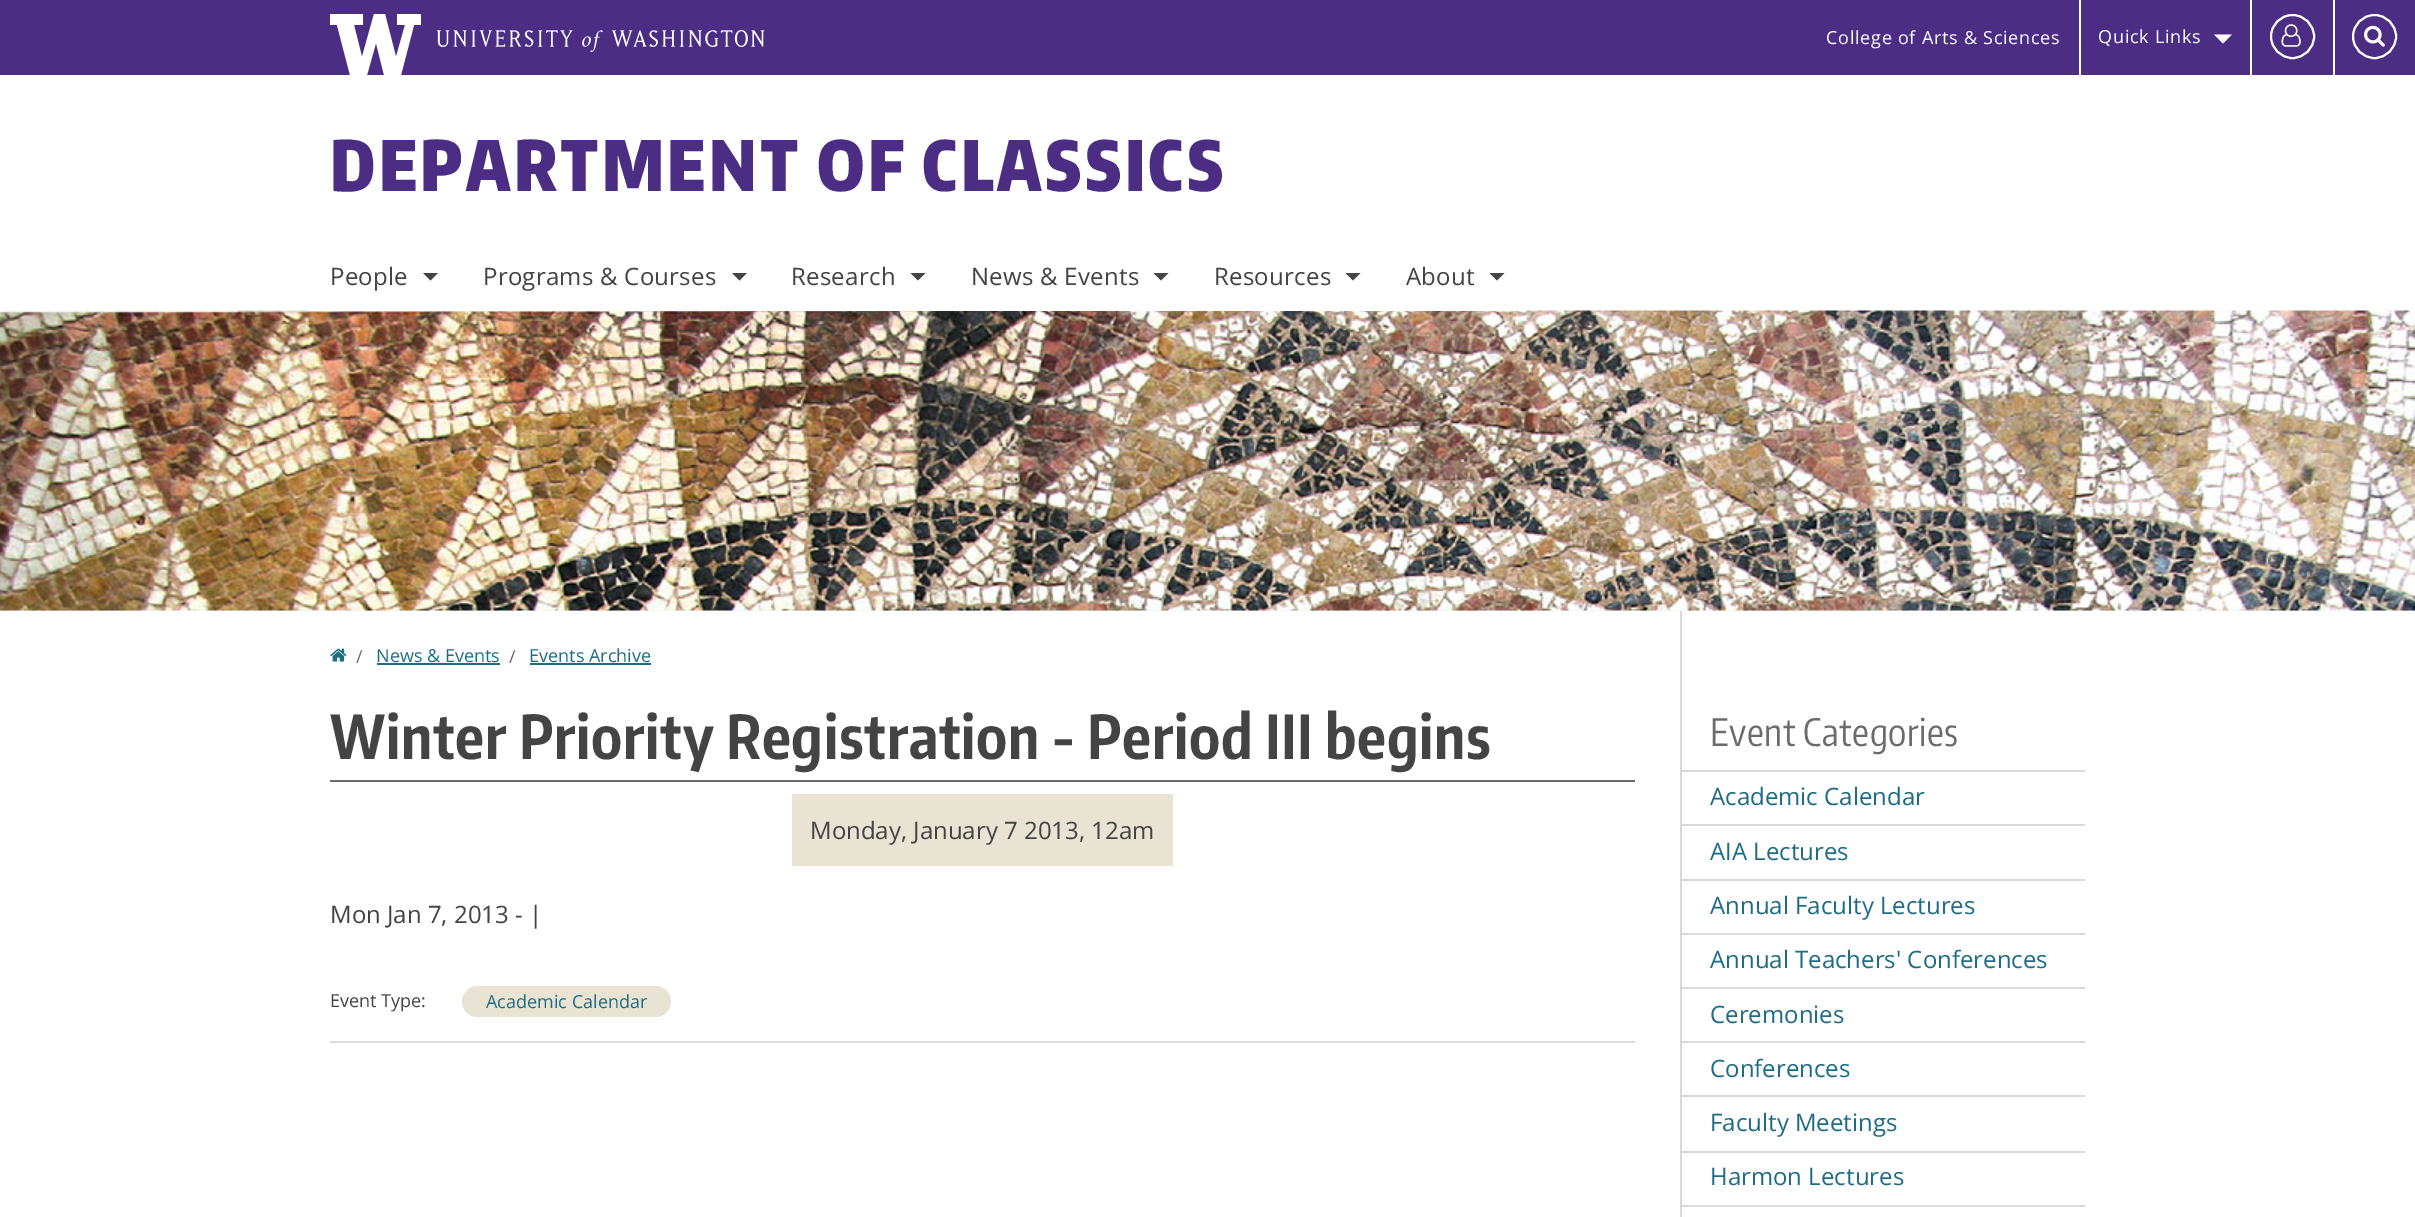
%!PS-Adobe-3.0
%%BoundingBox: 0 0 2415 1217
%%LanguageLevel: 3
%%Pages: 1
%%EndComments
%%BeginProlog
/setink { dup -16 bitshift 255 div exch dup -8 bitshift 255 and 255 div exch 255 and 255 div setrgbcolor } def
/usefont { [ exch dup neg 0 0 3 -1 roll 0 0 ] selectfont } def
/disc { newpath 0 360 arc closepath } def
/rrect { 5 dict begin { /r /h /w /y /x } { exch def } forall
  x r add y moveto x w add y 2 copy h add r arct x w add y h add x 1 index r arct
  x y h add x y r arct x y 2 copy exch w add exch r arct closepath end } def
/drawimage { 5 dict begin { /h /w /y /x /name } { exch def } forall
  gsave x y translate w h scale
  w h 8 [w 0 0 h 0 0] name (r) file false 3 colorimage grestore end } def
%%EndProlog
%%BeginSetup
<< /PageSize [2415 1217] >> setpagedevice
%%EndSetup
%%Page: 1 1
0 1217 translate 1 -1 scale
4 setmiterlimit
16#FFFFFF setink
0 0 2415 1217 rectfill
16#4B2E83 setink
0 0 2415 75 rectfill
16#FFFFFF setink
397 14 moveto 397 25 lineto 405 25 lineto 396 57 lineto 385 14 lineto 374 14 lineto 362 57 lineto 354 25 lineto 363 25 lineto 363 14 lineto 330 14 lineto 330 25 lineto 337 25 lineto 350 75 lineto 367 75 lineto 376 43 lineto 384 75 lineto 401 75 lineto 414 25 lineto 421 25 lineto 421 14 lineto closepath fill
(img1.raw) 437 30 328 22 drawimage
/OpenSans-Regular 18 usefont
1826 44 moveto 0.75 0 (College of Arts & Sciences) ashow
2079 0 2 75 rectfill
2098 43 moveto 0.75 0 (Quick Links) ashow
2214 34.5 moveto 2232 34.5 lineto 2223 43.5 lineto closepath fill
2250 0 2 75 rectfill
2 setlinewidth
2292.5 36.5 21.5 disc stroke
(img2.raw) 2281 24 20 23 drawimage
2333 0 2 75 rectfill
2374.5 36.5 21.5 disc stroke
(img3.raw) 2364 25 21 22 drawimage
/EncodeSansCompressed-Black 69 usefont
16#4B2E83 setink
330 191 moveto 3.45 0 (DEPARTMENT OF CLASSICS) ashow
16#EFEFEF setink
0 610 2415 1 rectfill
(img4.raw) 0 310 2415 301 drawimage
16#FFFFFF setink
308 310 1219 1 rectfill
/OpenSans-Regular 24 usefont
16#444444 setink
330 285 moveto 0.25 0 (People) ashow
423 273 moveto 438 273 lineto 430.5 280.5 lineto closepath fill
483 285 moveto 0.25 0 (Programs & Courses) ashow
732 273 moveto 747 273 lineto 739.5 280.5 lineto closepath fill
791 285 moveto 0.25 0 (Research) ashow
910.5 273 moveto 925.5 273 lineto 918 280.5 lineto closepath fill
971 285 moveto 0.25 0 (News & Events) ashow
1153.5 273 moveto 1168.5 273 lineto 1161 280.5 lineto closepath fill
1214 285 moveto 0.25 0 (Resources) ashow
1345.5 273 moveto 1360.5 273 lineto 1353 280.5 lineto closepath fill
1406 285 moveto 0.25 0 (About) ashow
1489.5 273 moveto 1504.5 273 lineto 1497 280.5 lineto closepath fill
(img5.raw) 330 648 17 14 drawimage
/OpenSans-Regular 18 usefont
16#6B6B6B setink
356 663 moveto (/) show
16#1E6D85 setink
376 662 moveto (News & Events) show
377 663 123 2 rectfill
16#6B6B6B setink
509 663 moveto (/) show
16#1E6D85 setink
529 662 moveto (Events Archive) show
530 663 121 2 rectfill
/EncodeSansCompressed-Bold 60 usefont
16#444444 setink
330 759 moveto 0.75 0 (Winter Priority Registration - Period III begins) ashow
16#6B6B6B setink
330 780 1305 2 rectfill
16#E8E3D3 setink
792 794 381 72 rectfill
/OpenSans-Regular 24 usefont
16#444444 setink
810 839 moveto (Monday, January 7 2013, 12am) show
330 923 moveto (Mon Jan 7, 2013 - |) show
16#D9D9D9 setink
330 1041 1305 2 rectfill
/OpenSans-Regular 18 usefont
16#444444 setink
330 1007 moveto (Event Type:) show
16#E8E3D3 setink
462 986 209 31 15.5 rrect fill
16#1E6D85 setink
486 1008 moveto (Academic Calendar) show
16#D9D9D9 setink
1680 611 2 606 rectfill
/EncodeSansCompressed-Regular 37.5 usefont
16#6B6B6B setink
1710 746 moveto 0.5 0 (Event Categories) ashow
16#D9D9D9 setink
1682 770 403 2 rectfill
/OpenSans-Regular 24 usefont
16#1E6D85 setink
1710 805 moveto (Academic Calendar) show
16#D9D9D9 setink
1682 824 403 2 rectfill
16#1E6D85 setink
1710 860 moveto (AIA Lectures) show
16#D9D9D9 setink
1682 879 403 2 rectfill
16#1E6D85 setink
1710 914 moveto (Annual Faculty Lectures) show
16#D9D9D9 setink
1682 933 403 2 rectfill
16#1E6D85 setink
1710 968 moveto (Annual Teachers' Conferences) show
16#D9D9D9 setink
1682 987 403 2 rectfill
16#1E6D85 setink
1710 1023 moveto (Ceremonies) show
16#D9D9D9 setink
1682 1041 403 2 rectfill
16#1E6D85 setink
1710 1077 moveto (Conferences) show
16#D9D9D9 setink
1682 1095 403 2 rectfill
16#1E6D85 setink
1710 1131 moveto (Faculty Meetings) show
16#D9D9D9 setink
1682 1151 403 2 rectfill
16#1E6D85 setink
1710 1185 moveto (Harmon Lectures) show
16#D9D9D9 setink
1682 1205 403 2 rectfill
showpage
%%EOF
